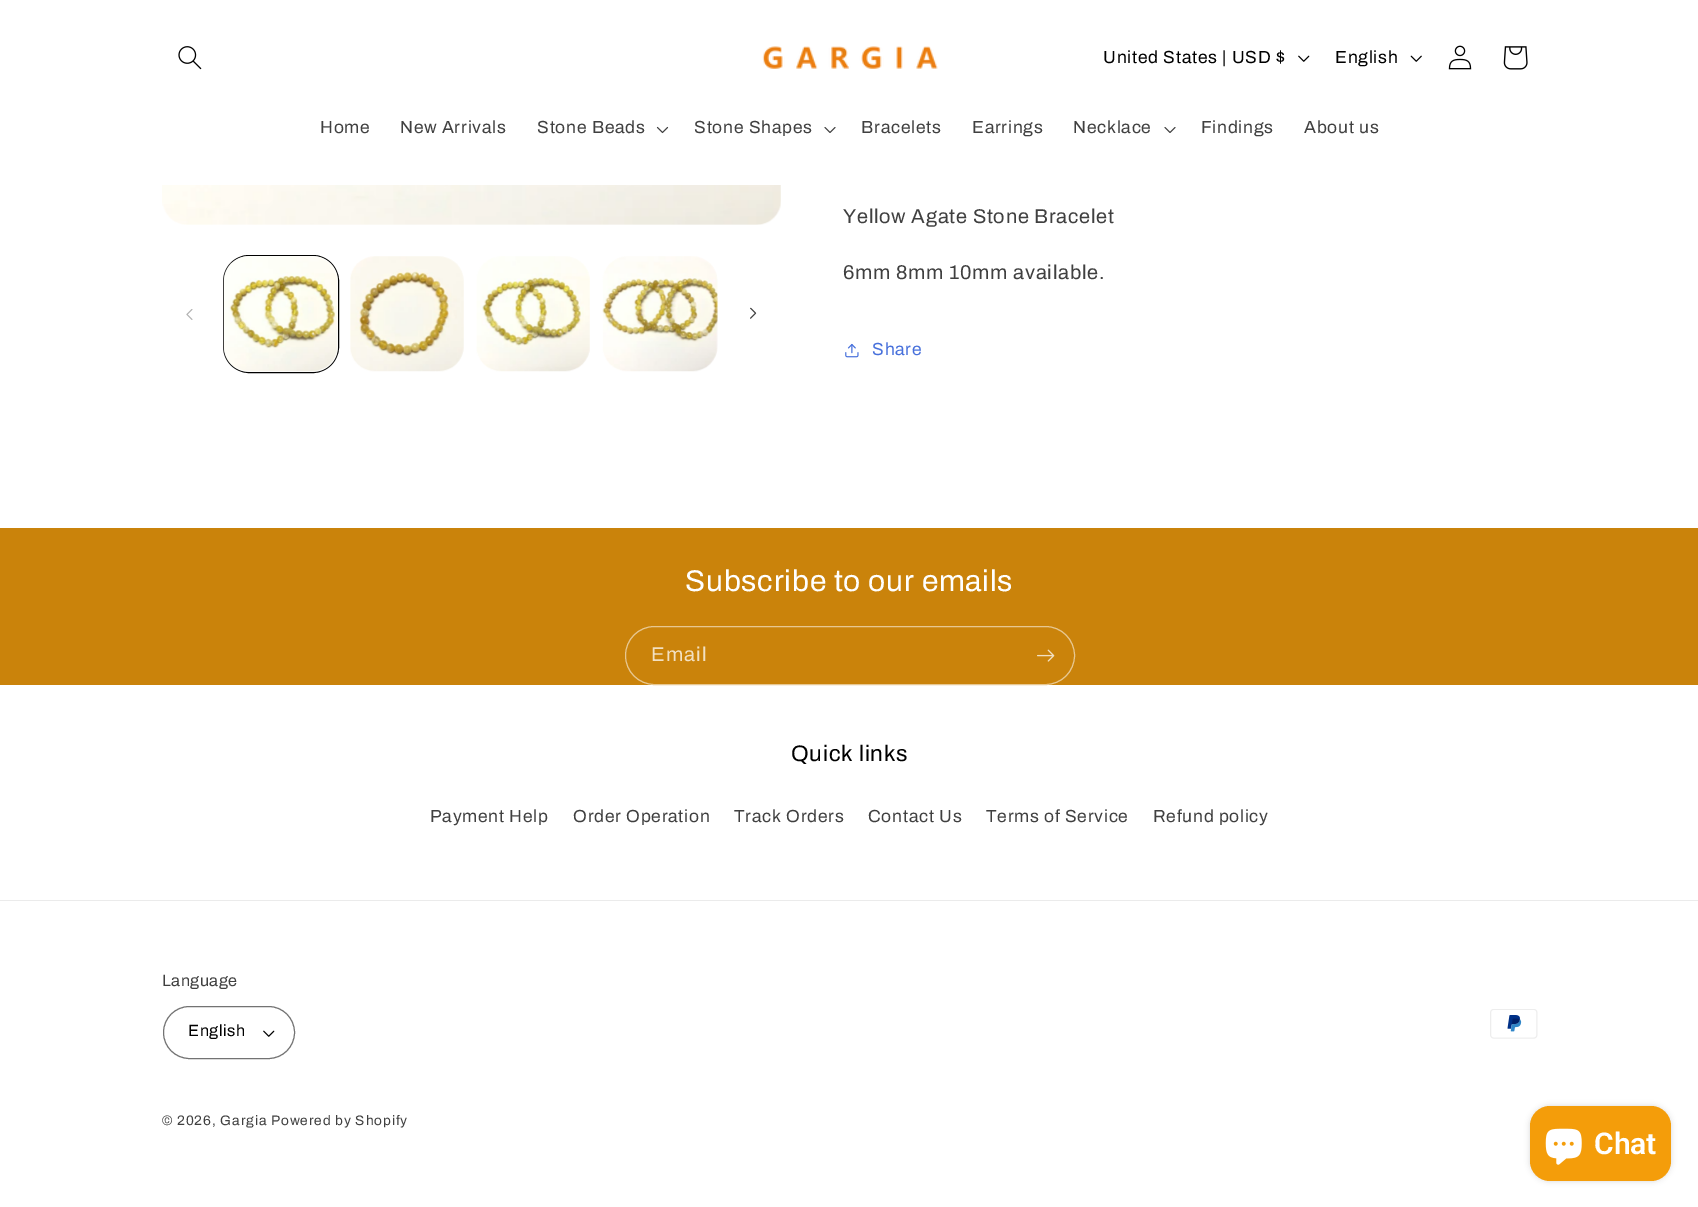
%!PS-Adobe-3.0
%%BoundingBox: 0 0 1698 1207
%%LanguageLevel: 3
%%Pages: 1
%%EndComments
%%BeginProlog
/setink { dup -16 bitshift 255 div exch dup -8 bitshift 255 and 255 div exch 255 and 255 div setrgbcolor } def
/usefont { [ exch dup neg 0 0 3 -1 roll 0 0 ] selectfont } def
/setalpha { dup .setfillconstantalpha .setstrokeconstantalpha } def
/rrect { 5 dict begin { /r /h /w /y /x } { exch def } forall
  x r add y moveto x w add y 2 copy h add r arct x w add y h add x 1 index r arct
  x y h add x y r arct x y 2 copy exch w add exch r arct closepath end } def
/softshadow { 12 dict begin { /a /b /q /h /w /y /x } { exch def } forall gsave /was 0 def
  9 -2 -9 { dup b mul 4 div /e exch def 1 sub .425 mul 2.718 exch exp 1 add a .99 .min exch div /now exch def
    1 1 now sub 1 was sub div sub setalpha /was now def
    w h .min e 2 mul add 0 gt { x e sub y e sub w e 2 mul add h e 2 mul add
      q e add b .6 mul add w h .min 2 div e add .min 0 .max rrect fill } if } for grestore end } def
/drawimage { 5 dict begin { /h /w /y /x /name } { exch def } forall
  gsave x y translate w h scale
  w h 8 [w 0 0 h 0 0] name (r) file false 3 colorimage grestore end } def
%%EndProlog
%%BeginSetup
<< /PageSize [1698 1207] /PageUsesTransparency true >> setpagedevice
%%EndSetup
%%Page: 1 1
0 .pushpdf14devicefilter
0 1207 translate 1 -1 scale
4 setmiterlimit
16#FFFFFF setink
0 0 1698 1207 rectfill
(img1.raw) 178 46 24 24 drawimage
(img2.raw) 762 46 176 23 drawimage
/Archivo-Regular 17.5 usefont
16#000000 setink
1103 63 moveto 0.75 0 (United States | USD $) ashow
(img3.raw) 1298 55 12 7 drawimage
1335 63 moveto 0.75 0 (English) ashow
(img4.raw) 1410 55 12 7 drawimage
(img5.raw) 1448 45 24 25 drawimage
(img6.raw) 1503 46 25 24 drawimage
16#404040 setink
320 133 moveto 0.75 0 (Home) ashow
400 133 moveto 0.75 0 (New Arrivals) ashow
537 133 moveto 0.75 0 (Stone Beads) ashow
(img7.raw) 656 126 13 8 drawimage
694 133 moveto 0.75 0 (Stone Shapes) ashow
(img8.raw) 824 127 12 6 drawimage
861 133 moveto 0.75 0 (Bracelets) ashow
972 133 moveto 0.75 0 (Earrings) ashow
1073 133 moveto 0.75 0 (Necklace) ashow
(img8.raw) 1164 127 12 6 drawimage
1201 133 moveto 0.75 0 (Findings) ashow
1304 133 moveto 0.75 0 (About us) ashow
(img9.raw) 162 185 619 40 drawimage
(img10.raw) 186 309 7 11 drawimage
16#000000 setink
223.5 255.5 115 117 25.5 rrect stroke
(img11.raw) 223 256 115 116 drawimage
(img12.raw) 350 256 114 116 drawimage
(img13.raw) 476 256 114 116 drawimage
(img14.raw) 602 256 116 116 drawimage
(img15.raw) 750 307 7 12 drawimage
/Archivo-Regular 20 usefont
16#404040 setink
843 223 moveto 0.75 0 (Yellow Agate Stone Bracelet) ashow
843 279 moveto 0.75 0 (6mm 8mm 10mm available.) ashow
(img16.raw) 845 343 14 15 drawimage
/Archivo-Regular 17.5 usefont
16#4770DB setink
872 355 moveto 0.75 0 (Share) ashow
16#CA830B setink
0 528 1698 157 rectfill
/Archivo-Regular 30 usefont
16#FFFFFF setink
685 591 moveto 0.75 0 (Subscribe to our emails) ashow
16#E7C791 setink
625.5 626.5 449 58 29 rrect stroke
/Archivo-Regular 20 usefont
16#F2E0C2 setink
651 661 moveto 1.25 0 (Email) ashow
(img17.raw) 1037 649 18 13 drawimage
/Archivo-Regular 22.5 usefont
16#000000 setink
791 761 moveto 0.75 0 (Quick links) ashow
/Archivo-Regular 17.5 usefont
16#404040 setink
430 822 moveto 0.75 0 (Payment Help) ashow
573 822 moveto 0.75 0 (Order Operation) ashow
734 822 moveto 0.75 0 (Track Orders) ashow
868 822 moveto 0.75 0 (Contact Us) ashow
986 822 moveto 0.75 0 (Terms of Service) ashow
1153 822 moveto 0.75 0 (Refund policy) ashow
16#EBEBEB setink
0 900 1698 1 rectfill
/Archivo-Regular 16.25 usefont
16#404040 setink
162 986 moveto 0.5 0 (Language) ashow
(img3.raw) 263 1030 12 7 drawimage
16#737373 setink
163.5 1006.5 131 52 26 rrect stroke
16#000000 setink
188 1036 moveto 0.5 0 (English) ashow
(img18.raw) 1490 1009 48 30 drawimage
/Archivo-Regular 13.75 usefont
16#404040 setink
162 1125 moveto 0.9 0 (© 2026, Gargia Powered by Shopify) ashow
16#000000 setink
1530 1106 141 75 20 3 0.15 softshadow
16#F49D0A setink
1530 1106 141 75 20 rrect fill
(img19.raw) 1545 1128 37 37 drawimage
/Roboto-SemiBold 30 usefont
16#FFFFFF setink
1594 1154 moveto (Chat) show
.poppdf14devicefilter showpage
%%EOF
